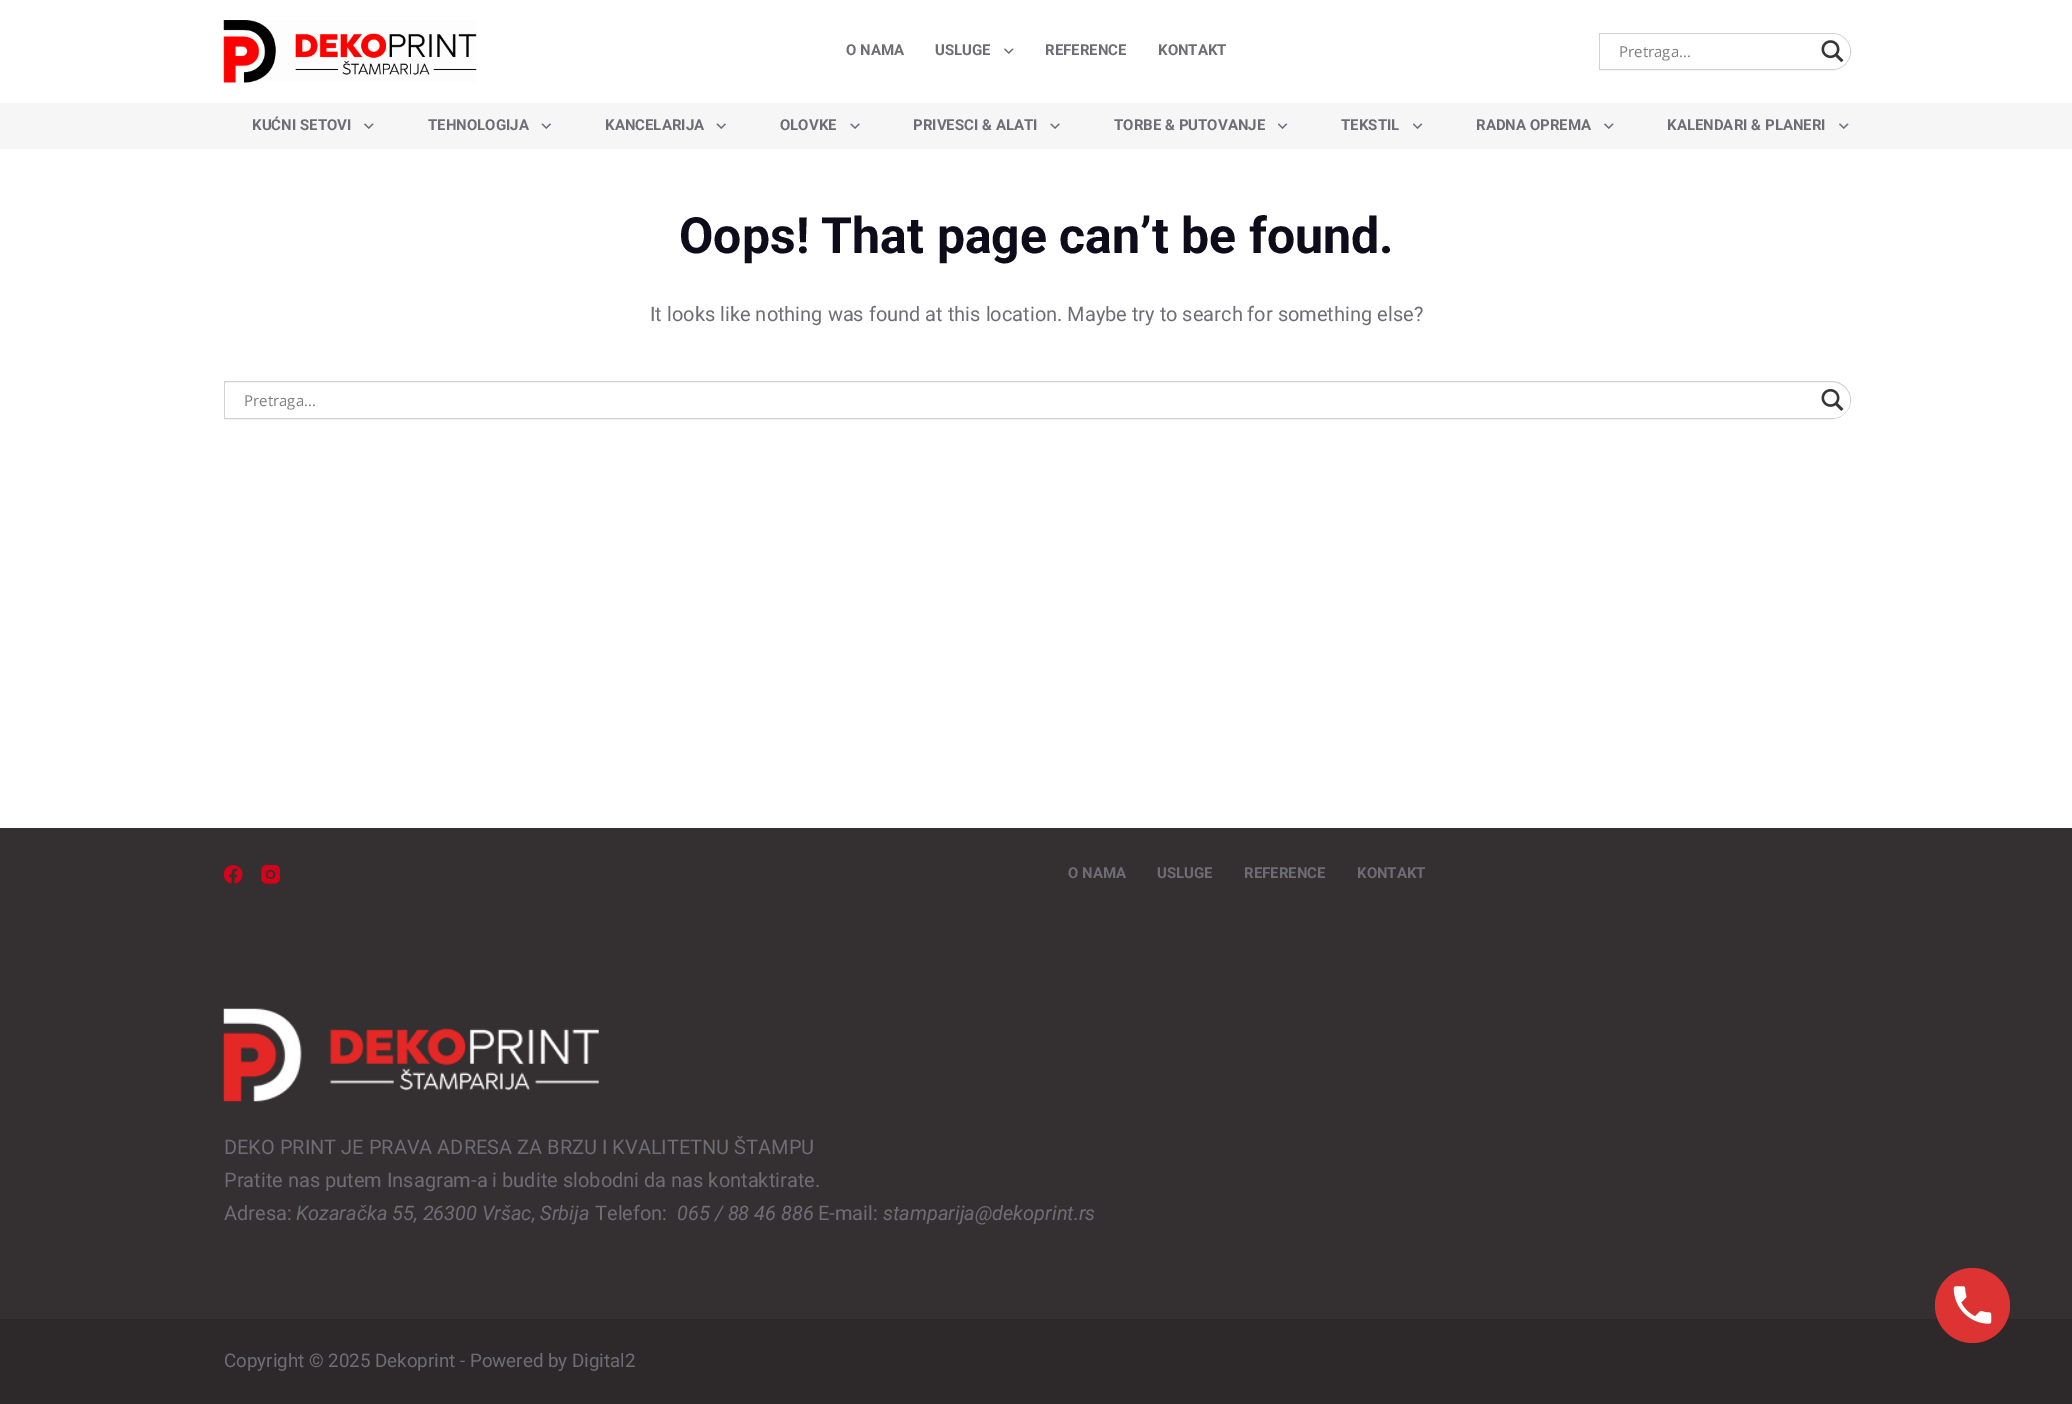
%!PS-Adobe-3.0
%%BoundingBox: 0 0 2072 1404
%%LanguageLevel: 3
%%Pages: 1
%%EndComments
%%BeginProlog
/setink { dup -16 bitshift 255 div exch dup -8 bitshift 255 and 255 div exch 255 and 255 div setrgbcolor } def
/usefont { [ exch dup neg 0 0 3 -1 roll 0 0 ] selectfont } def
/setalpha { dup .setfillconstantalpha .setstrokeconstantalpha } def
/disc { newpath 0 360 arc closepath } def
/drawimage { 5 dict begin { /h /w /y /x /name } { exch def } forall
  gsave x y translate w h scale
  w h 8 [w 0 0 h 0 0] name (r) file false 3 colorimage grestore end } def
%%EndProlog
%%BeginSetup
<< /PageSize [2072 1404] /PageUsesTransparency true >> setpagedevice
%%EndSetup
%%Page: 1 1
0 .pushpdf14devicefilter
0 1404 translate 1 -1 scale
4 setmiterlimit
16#FFFFFF setink
0 0 2072 1404 rectfill
(img1.raw) 223 20 254 63 drawimage
/Roboto-Bold 15 usefont
16#6E6D76 setink
846 55 moveto (O NAMA) show
935 55 moveto (USLUGE) show
(img2.raw) 1004 48 10 6 drawimage
1045 55 moveto (REFERENCE) show
1158 55 moveto (KONTAKT) show
16#D1D1D1 setink
1599.5 33.5 moveto 1832.5 33.5 lineto 1842.5 33.5 1850.5 41.5 1850.5 51.5 curveto 1850.5 61.5 1842.5 69.5 1832.5 69.5 curveto 1599.5 69.5 lineto closepath stroke
16#FFFFFF setink
1600 34 moveto 1832.5 34 lineto 1842 34 1850 42 1850 51.5 curveto 1850 61 1842 69 1832.5 69 curveto 1600 69 lineto closepath fill
/OpenSans-Regular 15 usefont
16#7D7D7D setink
1619 57 moveto (Pretraga...) show
(img3.raw) 1821 40 23 23 drawimage
16#F6F6F6 setink
0 103 2072 46 rectfill
/Roboto-Bold 15 usefont
16#6E6D76 setink
252 130 moveto (KUĆNI SETOVI) show
(img4.raw) 364 123 10 6 drawimage
428 130 moveto (TEHNOLOGIJA) show
(img5.raw) 541 123 10 6 drawimage
605 130 moveto (KANCELARIJA) show
(img5.raw) 716 123 10 6 drawimage
780 130 moveto (OLOVKE) show
(img6.raw) 850 123 10 6 drawimage
913 130 moveto (PRIVESCI & ALATI) show
(img6.raw) 1050 123 10 6 drawimage
1114 130 moveto (TORBE & PUTOVANJE) show
(img7.raw) 1278 123 10 6 drawimage
1341 130 moveto (TEKSTIL) show
(img7.raw) 1413 123 10 6 drawimage
1476 130 moveto (RADNA OPREMA) show
(img4.raw) 1604 123 10 6 drawimage
1667 130 moveto (KALENDARI & PLANERI) show
(img4.raw) 1839 123 10 6 drawimage
/Roboto-Bold 50 usefont
16#0E0C1B setink
679 253 moveto (Oops! That page can’t be found.) show
/Roboto-Regular 20 usefont
16#6E6D76 setink
650 321 moveto (It looks like nothing was found at this location. Maybe try to search for something else?) show
16#D1D1D1 setink
224.5 381.5 moveto 1832 381.5 lineto 1842 381.5 1850.5 390 1850.5 400 curveto 1850.5 410 1842 418.5 1832 418.5 curveto 224.5 418.5 lineto closepath stroke
16#FFFFFF setink
225 383 moveto 1832.5 383 lineto 1842 383 1850 391 1850 400.5 curveto 1850 410 1842 418 1832.5 418 curveto 225 418 lineto closepath fill
/OpenSans-Regular 15 usefont
16#7D7D7D setink
244 406 moveto (Pretraga...) show
gsave
1815 383 35 35 rectclip
0.64 setalpha
16#FFFFFF setink
1814 384 moveto 1814 418 lineto 1691 418 lineto 1691 383 lineto 1832 383 lineto 1838 384 lineto closepath 1849 406 moveto 1850 403 1850 398 1849 395 curveto closepath eofill
grestore
(img8.raw) 1821 388 23 23 drawimage
16#342F30 setink
0 828 2072 491 rectfill
(img9.raw) 224 865 19 19 drawimage
(img10.raw) 261 865 19 19 drawimage
/Roboto-Bold 15 usefont
16#6E6D76 setink
[
    [(O NAMA) 1068 878]
    [(USLUGE) 1157 878]
    [(REFERENCE) 1244 878]
    [(KONTAKT) 1357 878]
] { aload pop moveto show } forall
(img11.raw) 223 1008 376 94 drawimage
/Roboto-Regular 20 usefont
[
    [(DEKO PRINT JE PRAVA ADRESA ZA BRZU I KVALITETNU ŠTAMPU) 224 1154]
    [(Pratite nas putem Insagram-a i budite slobodni da nas kontaktirate.) 224 1187]
    [(Adresa:) 224 1220]
] { aload pop moveto show } forall
/Roboto-Italic 20 usefont
296 1220 moveto (Kozaračka 55, 26300 Vršac, Srbija) show
/Roboto-Regular 20 usefont
595 1220 moveto (Telefon:) show
/Roboto-Italic 20 usefont
677 1220 moveto (065 / 88 46 886) show
/Roboto-Regular 20 usefont
818 1220 moveto (E-mail:) show
/Roboto-Italic 20 usefont
883 1220 moveto (stamparija@dekoprint.rs) show
16#2D292A setink
0 1319 2072 85 rectfill
/Roboto-Regular 18.75 usefont
16#6E6D76 setink
224 1367 moveto (Copyright © 2025 Dekoprint - Powered by Digital2) show
16#DD3333 setink
1972.5 1305.5 37.5 disc fill
(img12.raw) 1953 1286 39 38 drawimage
.poppdf14devicefilter showpage
%%EOF
